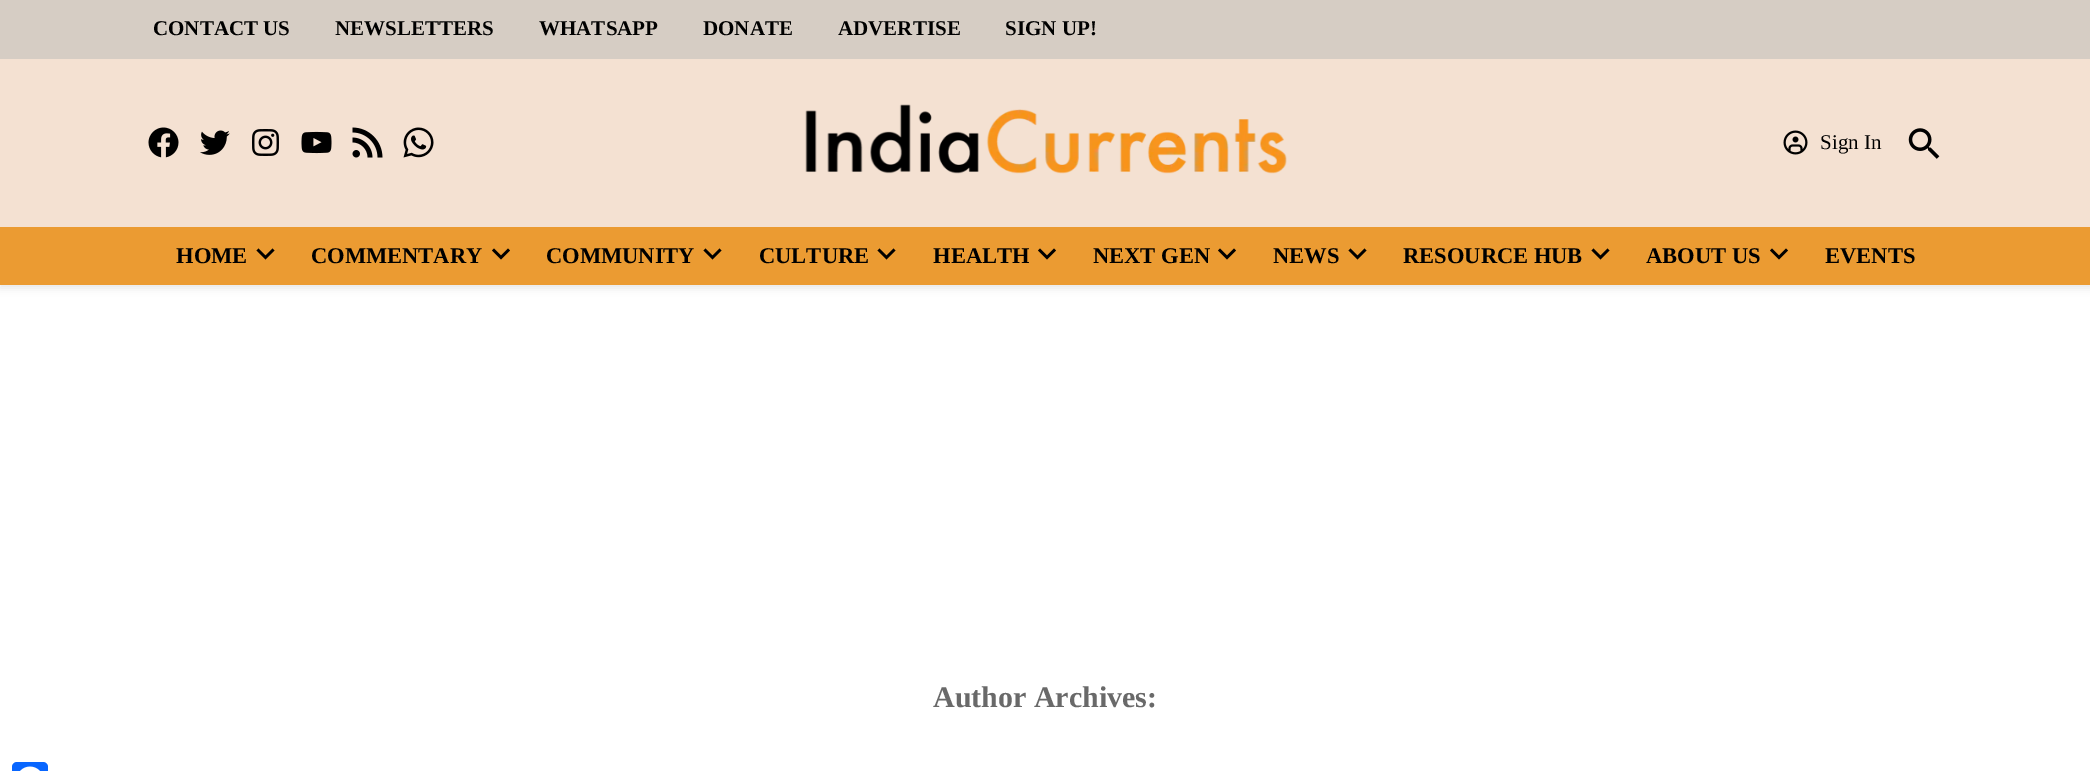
%!PS-Adobe-3.0
%%BoundingBox: 0 0 2090 771
%%LanguageLevel: 3
%%Pages: 1
%%EndComments
%%BeginProlog
/setink { dup -16 bitshift 255 div exch dup -8 bitshift 255 and 255 div exch 255 and 255 div setrgbcolor } def
/usefont { [ exch dup neg 0 0 3 -1 roll 0 0 ] selectfont } def
/setalpha { dup .setfillconstantalpha .setstrokeconstantalpha } def
/rrect { 5 dict begin { /r /h /w /y /x } { exch def } forall
  x r add y moveto x w add y 2 copy h add r arct x w add y h add x 1 index r arct
  x y h add x y r arct x y 2 copy exch w add exch r arct closepath end } def
/softshadow { 12 dict begin { /a /b /q /h /w /y /x } { exch def } forall gsave /was 0 def
  9 -2 -9 { dup b mul 4 div /e exch def 1 sub .425 mul 2.718 exch exp 1 add a .99 .min exch div /now exch def
    1 1 now sub 1 was sub div sub setalpha /was now def
    w h .min e 2 mul add 0 gt { x e sub y e sub w e 2 mul add h e 2 mul add
      q e add b .6 mul add w h .min 2 div e add .min 0 .max rrect fill } if } for grestore end } def
/drawimage { 5 dict begin { /h /w /y /x /name } { exch def } forall
  gsave x y translate w h scale
  w h 8 [w 0 0 h 0 0] name (r) file false 3 colorimage grestore end } def
%%EndProlog
%%BeginSetup
<< /PageSize [2090 771] /PageUsesTransparency true >> setpagedevice
%%EndSetup
%%Page: 1 1
0 .pushpdf14devicefilter
0 771 translate 1 -1 scale
4 setmiterlimit
16#FFFFFF setink
0 0 2090 771 rectfill
16#000000 setink
0 3 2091 285 0 4 0.1 softshadow
16#D6CDC4 setink
0 0 2090 59 rectfill
/LiberationSerif-Bold 21 usefont
16#000000 setink
[
    [(CONTACT US) 153 35]
    [(NEWSLETTERS) 335 35]
    [(WHATSAPP) 539 35]
    [(DONATE) 703 35]
    [(ADVERTISE) 838 35]
    [(SIGN UP!) 1005 35]
] { aload pop moveto show } forall
16#F4E1D2 setink
0 59 2090 168 rectfill
(img1.raw) 148 127 31 31 drawimage
(img2.raw) 200 130 30 25 drawimage
(img3.raw) 252 129 27 27 drawimage
(img4.raw) 301 131 31 23 drawimage
(img5.raw) 352 127 31 31 drawimage
(img6.raw) 403 127 31 31 drawimage
(img7.raw) 805 104 482 70 drawimage
(img8.raw) 1783 130 25 25 drawimage
/LiberationSerif-Regular 21 usefont
16#000000 setink
1820 149 moveto (Sign In) show
(img9.raw) 1908 128 32 31 drawimage
16#EB9B32 setink
0 227 2090 58 rectfill
/LiberationSerif-Bold 22.5 usefont
16#000000 setink
176 263 moveto (HOME) show
258.5 248.5 moveto 265.5 255.5 lineto 272.5 248.5 lineto 274.5 250.5 lineto 265.5 259.5 lineto 256.5 250.5 lineto closepath fill
311 263 moveto (COMMENTARY) show
494 248.5 moveto 501 255.5 lineto 508 248.5 lineto 510 250.5 lineto 501 259.5 lineto 492 250.5 lineto closepath fill
546 263 moveto (COMMUNITY) show
705.5 248.5 moveto 712.5 255.5 lineto 719.5 248.5 lineto 721.5 250.5 lineto 712.5 259.5 lineto 703.5 250.5 lineto closepath fill
759 263 moveto (CULTURE) show
879.5 248.5 moveto 886.5 255.5 lineto 893.5 248.5 lineto 895.5 250.5 lineto 886.5 259.5 lineto 877.5 250.5 lineto closepath fill
933 263 moveto (HEALTH) show
1040 248.5 moveto 1047 255.5 lineto 1054 248.5 lineto 1056 250.5 lineto 1047 259.5 lineto 1038 250.5 lineto closepath fill
1093 263 moveto (NEXT GEN) show
1220 248.5 moveto 1227 255.5 lineto 1234 248.5 lineto 1236 250.5 lineto 1227 259.5 lineto 1218 250.5 lineto closepath fill
1273 263 moveto (NEWS) show
1350.5 248.5 moveto 1357.5 255.5 lineto 1364.5 248.5 lineto 1366.5 250.5 lineto 1357.5 259.5 lineto 1348.5 250.5 lineto closepath fill
1403 263 moveto (RESOURCE HUB) show
1593.5 248.5 moveto 1600.5 255.5 lineto 1607.5 248.5 lineto 1609.5 250.5 lineto 1600.5 259.5 lineto 1591.5 250.5 lineto closepath fill
1646 263 moveto (ABOUT US) show
1772 248.5 moveto 1779 255.5 lineto 1786 248.5 lineto 1788 250.5 lineto 1779 259.5 lineto 1770 250.5 lineto closepath fill
1825 263 moveto (EVENTS) show
/LiberationSerif-Bold 30 usefont
16#696969 setink
933 707 moveto (Author Archives:) show
16#0866FF setink
12 762 36 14 5 rrect fill
(img10.raw) 20 766 20 5 drawimage
.poppdf14devicefilter showpage
%%EOF
